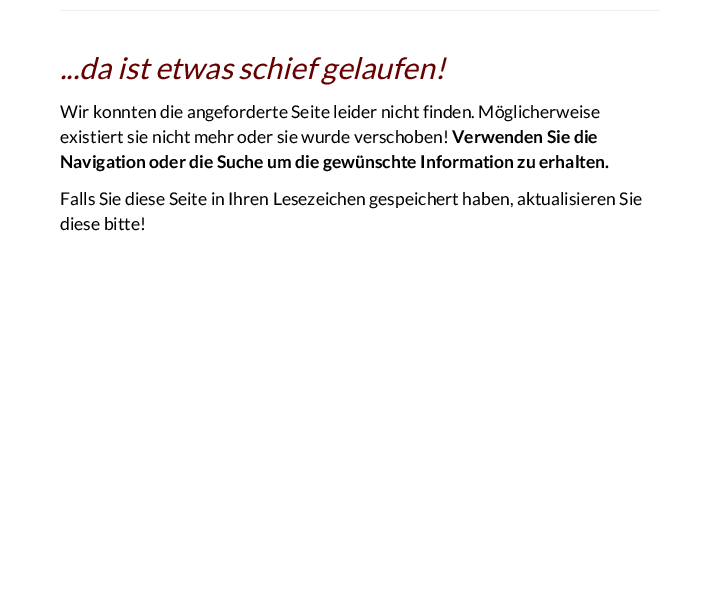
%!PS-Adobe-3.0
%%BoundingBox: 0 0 720 589
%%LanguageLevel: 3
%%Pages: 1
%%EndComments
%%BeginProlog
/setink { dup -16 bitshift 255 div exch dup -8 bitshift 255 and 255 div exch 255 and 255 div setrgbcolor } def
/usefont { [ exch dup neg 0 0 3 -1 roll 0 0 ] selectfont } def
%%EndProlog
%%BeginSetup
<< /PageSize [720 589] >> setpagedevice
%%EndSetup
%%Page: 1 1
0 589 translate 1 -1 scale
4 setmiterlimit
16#FFFFFF setink
0 0 720 589 rectfill
16#EEEEEE setink
60 10 600 1 rectfill
/Lato-Italic 30 usefont
16#660000 setink
60 79 moveto (...da ist etwas schief gelaufen!) show
/Lato-Regular 17.5 usefont
16#000000 setink
60 118 moveto (Wir konnten die angeforderte Seite leider nicht finden. Möglicherweise) show
60 143 moveto (existiert sie nicht mehr oder sie wurde verschoben!) show
/Lato-Bold 17.5 usefont
452 143 moveto (Verwenden Sie die) show
60 168 moveto (Navigation oder die Suche um die gewünschte Information zu erhalten.) show
/Lato-Regular 17.5 usefont
60 205 moveto (Falls Sie diese Seite in Ihren Lesezeichen gespeichert haben, aktualisieren Sie) show
60 230 moveto (diese bitte!) show
showpage
%%EOF
